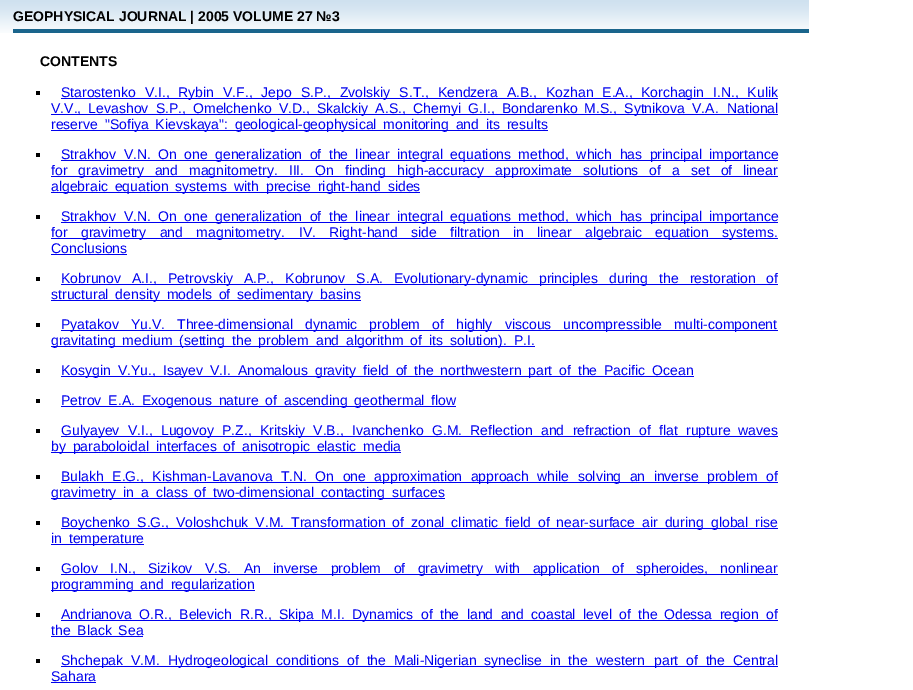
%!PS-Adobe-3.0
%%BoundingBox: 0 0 913 690
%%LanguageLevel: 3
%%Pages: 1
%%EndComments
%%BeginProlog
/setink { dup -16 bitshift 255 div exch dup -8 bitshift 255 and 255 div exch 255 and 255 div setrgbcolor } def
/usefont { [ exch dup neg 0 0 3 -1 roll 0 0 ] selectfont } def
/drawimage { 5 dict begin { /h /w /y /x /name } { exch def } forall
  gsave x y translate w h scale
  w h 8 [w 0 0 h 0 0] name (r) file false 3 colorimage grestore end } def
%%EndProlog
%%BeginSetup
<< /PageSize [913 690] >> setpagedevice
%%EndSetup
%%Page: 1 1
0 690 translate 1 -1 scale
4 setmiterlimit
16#FFFFFF setink
0 0 913 690 rectfill
(img1.raw) 0 0 809 33 drawimage
/LiberationSans-Bold 14 usefont
16#000000 setink
13 21 moveto (GEOPHYSICAL JOURNAL | 2005 VOLUME 27 №3) show
16#1A658C setink
13 29 796 4 rectfill
16#000000 setink
40 66 moveto (CONTENTS) show
36 91 4 4 rectfill
16#0000EE setink
61 98 717 1 rectfill
/LiberationSans-Regular 14 usefont
61 97 moveto 5 0 32 (Starostenko V.I., Rybin V.F., Jepo S.P., Zvolskiy S.T., Kendzera A.B., Kozhan E.A.,) widthshow
641 97 moveto 5 0 32 (Korchagin I.N., Kulik) widthshow
51 114 727 1 rectfill
51 113 moveto 3.25 0 32 (V.V., Levashov S.P., Omelchenko V.D., Skalckiy A.S., Chernyi G.I., Bondarenko M.S., Sytnikova V.A.) widthshow
727 113 moveto (National) show
51 130 497 1 rectfill
51 129 moveto 3 0 32 (reserve "Sofiya Kievskaya": geological-geophysical monitoring and its results) widthshow
16#000000 setink
36 153 4 4 rectfill
16#0000EE setink
61 160 717 1 rectfill
61 159 moveto 3.5 0 32 (Strakhov V.N. On one generalization of the linear integral equations method, which has principal importance) widthshow
51 176 727 1 rectfill
51 175 moveto 7.1 0 32 (for gravimetry and magnitometry. III. On finding high-accuracy approximate solutions of a set of linear) widthshow
51 192 369 1 rectfill
51 191 moveto 3 0 32 (algebraic equation systems) widthshow
234 191 moveto 3 0 32 (with precise right-hand sides) widthshow
16#000000 setink
36 215 4 4 rectfill
16#0000EE setink
61 222 717 1 rectfill
61 221 moveto 3.5 0 32 (Strakhov V.N. On one generalization of the linear integral equations method, which has principal importance) widthshow
51 238 727 1 rectfill
51 237 moveto 9.6 0 32 (for gravimetry and magnitometry. IV. Right-hand side filtration in linear algebraic equation systems.) widthshow
51 253 moveto (Conclusions) show
[
    [51 254 76 1 16#0000EE]
    [36 277 4 4 16#000000]
    [61 284 717 1 16#0000EE]
] { aload pop setink rectfill } forall
61 283 moveto 7.25 0 32 (Kobrunov A.I., Petrovskiy A.P., Kobrunov S.A. Evolutionary-dynamic principles during the restoration) widthshow
766 283 moveto (of) show
51 300 310 1 rectfill
51 299 moveto 3 0 32 (structural density models of sedimentary basins) widthshow
16#000000 setink
36 323 4 4 rectfill
16#0000EE setink
61 330 717 1 rectfill
61 329 moveto 8.25 0 32 (Pyatakov Yu.V. Three-dimensional dynamic problem of highly viscous uncompressible multi-component) widthshow
51 346 484 1 rectfill
51 345 moveto 3 0 32 (gravitating medium \(setting the problem and algorithm of its solution\). P.I.) widthshow
16#000000 setink
36 369 4 4 rectfill
16#0000EE setink
61 376 633 1 rectfill
61 375 moveto 3 0 32 (Kosygin V.Yu., Isayev V.I. Anomalous gravity field of the northwestern part of the Pacific Ocean) widthshow
16#000000 setink
36 399 4 4 rectfill
16#0000EE setink
61 406 395 1 rectfill
61 405 moveto 3 0 32 (Petrov E.A. Exogenous nature of ascending geothermal flow) widthshow
16#000000 setink
36 429 4 4 rectfill
16#0000EE setink
61 436 717 1 rectfill
61 435 moveto 4.4 0 32 (Gulyayev V.I., Lugovoy P.Z., Kritskiy V.B., Ivanchenko G.M. Reflection and refraction of flat rupture) widthshow
738 435 moveto (waves) show
51 452 350 1 rectfill
51 451 moveto 3 0 32 (by paraboloidal interfaces of anisotropic elastic media) widthshow
16#000000 setink
36 475 4 4 rectfill
16#0000EE setink
61 482 717 1 rectfill
61 481 moveto 4.5 0 32 (Bulakh E.G., Kishman-Lavanova T.N. On one approximation approach while solving an inverse) widthshow
707 481 moveto 4.5 0 32 (problem of) widthshow
51 498 394 1 rectfill
51 497 moveto 3 0 32 (gravimetry in a class of two-dimensional contacting surfaces) widthshow
16#000000 setink
36 521 4 4 rectfill
16#0000EE setink
61 528 717 1 rectfill
61 527 moveto 3.1 0 32 (Boychenko S.G., Voloshchuk V.M. Transformation of zonal climatic field of near-surface air during) widthshow
711 527 moveto 3 0 32 (global rise) widthshow
51 544 93 1 rectfill
51 543 moveto 3 0 32 (in temperature) widthshow
16#000000 setink
36 567 4 4 rectfill
16#0000EE setink
61 574 717 1 rectfill
61 573 moveto 8.5 0 32 (Golov I.N., Sizikov V.S. An inverse problem of gravimetry with application of spheroides,) widthshow
720 573 moveto (nonlinear) show
51 590 204 1 rectfill
51 589 moveto 3 0 32 (programming and regularization) widthshow
16#000000 setink
36 613 4 4 rectfill
16#0000EE setink
61 620 717 1 rectfill
61 619 moveto 3.5 0 32 (Andrianova O.R., Belevich R.R., Skipa M.I. Dynamics of the land and coastal level of the) widthshow
664 619 moveto 3.5 0 32 (Odessa region of) widthshow
51 635 moveto 3 0 32 (the Black Sea) widthshow
[
    [51 636 92 1 16#0000EE]
    [36 659 4 4 16#000000]
    [61 666 717 1 16#0000EE]
] { aload pop setink rectfill } forall
61 665 moveto 4 0 32 (Shchepak V.M. Hydrogeological conditions of the Mali-Nigerian syneclise in the western) widthshow
654 665 moveto 4 0 32 (part of the Central) widthshow
51 681 moveto (Sahara) show
51 682 45 1 rectfill
showpage
%%EOF
